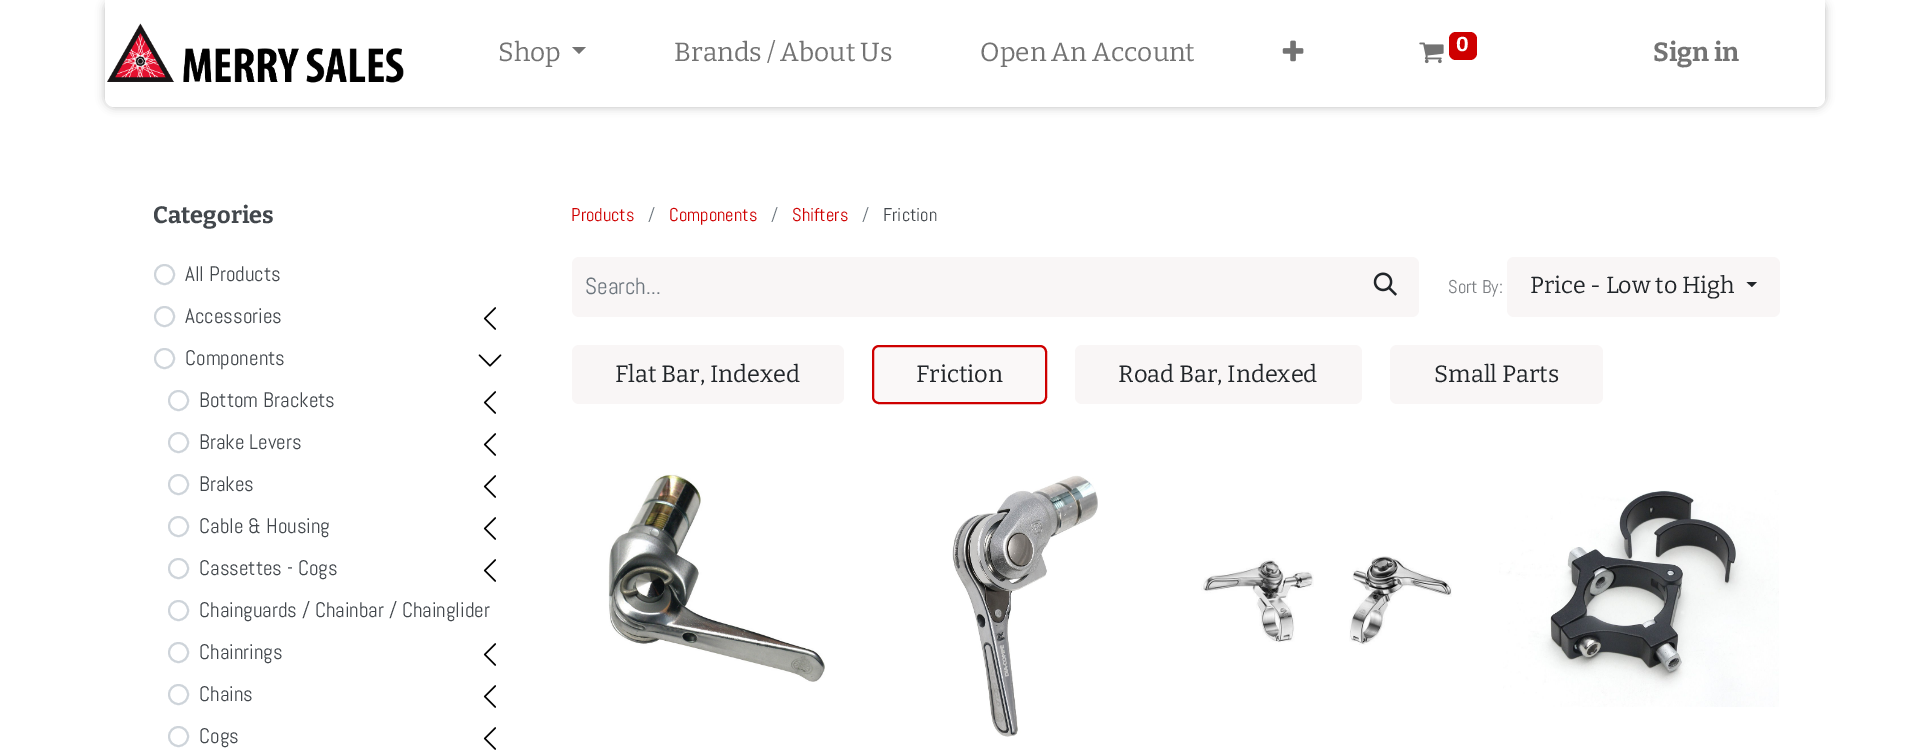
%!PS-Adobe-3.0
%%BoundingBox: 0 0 1929 750
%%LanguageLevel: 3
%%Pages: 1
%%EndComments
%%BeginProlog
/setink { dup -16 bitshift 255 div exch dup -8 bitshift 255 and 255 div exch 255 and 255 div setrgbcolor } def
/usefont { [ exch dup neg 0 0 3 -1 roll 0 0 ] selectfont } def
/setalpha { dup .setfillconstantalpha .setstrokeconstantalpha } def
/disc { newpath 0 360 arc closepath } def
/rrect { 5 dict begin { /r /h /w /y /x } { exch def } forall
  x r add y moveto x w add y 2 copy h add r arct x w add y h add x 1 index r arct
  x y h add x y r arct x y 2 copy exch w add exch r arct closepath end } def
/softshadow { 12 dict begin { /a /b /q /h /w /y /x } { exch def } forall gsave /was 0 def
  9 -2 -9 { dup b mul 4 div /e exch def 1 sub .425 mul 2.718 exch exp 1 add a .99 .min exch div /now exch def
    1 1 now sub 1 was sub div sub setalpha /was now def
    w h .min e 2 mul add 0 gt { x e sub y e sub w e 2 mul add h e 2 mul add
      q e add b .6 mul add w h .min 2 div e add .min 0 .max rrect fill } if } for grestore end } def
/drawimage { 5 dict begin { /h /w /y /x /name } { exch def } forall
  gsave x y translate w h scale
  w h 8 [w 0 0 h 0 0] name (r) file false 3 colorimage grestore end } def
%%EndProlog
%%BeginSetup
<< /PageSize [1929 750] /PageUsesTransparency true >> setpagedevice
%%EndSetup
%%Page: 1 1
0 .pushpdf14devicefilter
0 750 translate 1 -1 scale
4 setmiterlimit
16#FFFFFF setink
0 0 1929 750 rectfill
16#000000 setink
105 0 1720 107 9 4.5 0.25 softshadow
16#FFFFFF setink
105 0 moveto 1825 0 lineto 1825 98 lineto 1825 103 1821 107 1816 107 curveto 114 107 lineto 109 107 105 103 105 98 curveto closepath fill
(img1.raw) 107 23 297 60 drawimage
/Bitter-Regular 26.25 usefont
16#737373 setink
498 61 moveto (Shop) show
572 47 moveto 586 47 lineto 579 54 lineto closepath fill
674 61 moveto (Brands / About Us) show
980 61 moveto (Open An Account) show
(img2.raw) 1282 40 22 22 drawimage
(img3.raw) 1419 42 25 22 drawimage
16#CE0000 setink
1449 32 28 28 7 rrect fill
/Bitter-Bold 20 usefont
16#FFFFFF setink
1456 51 moveto (0) show
/Bitter-Bold 26.25 usefont
16#737373 setink
1653 61 moveto (Sign in) show
/Bitter-Bold 23.6 usefont
16#42474C setink
153 223 moveto (Categories) show
16#CED4DA setink
2 setlinewidth
164.5 274.5 9.5 disc stroke
/Abel-Regular 21 usefont
16#42474C setink
185 281 moveto (All Products) show
16#CED4DA setink
164.5 316.5 9.5 disc stroke
16#42474C setink
185 323 moveto (Accessories) show
(img4.raw) 483 307 13 23 drawimage
16#CED4DA setink
164.5 358.5 9.5 disc stroke
16#42474C setink
185 365 moveto (Components) show
(img5.raw) 478 354 24 13 drawimage
16#CED4DA setink
178.5 400.5 9.5 disc stroke
16#42474C setink
199 407 moveto (Bottom Brackets) show
(img4.raw) 483 391 13 23 drawimage
16#CED4DA setink
178.5 442.5 9.5 disc stroke
16#42474C setink
199 449 moveto (Brake Levers) show
(img4.raw) 483 433 13 23 drawimage
16#CED4DA setink
178.5 484.5 9.5 disc stroke
16#42474C setink
199 491 moveto (Brakes) show
(img4.raw) 483 475 13 23 drawimage
16#CED4DA setink
178.5 526.5 9.5 disc stroke
16#42474C setink
199 533 moveto (Cable & Housing) show
(img4.raw) 483 517 13 23 drawimage
16#CED4DA setink
178.5 568.5 9.5 disc stroke
16#42474C setink
199 575 moveto (Cassettes - Cogs) show
(img4.raw) 483 559 13 23 drawimage
16#CED4DA setink
178.5 610.5 9.5 disc stroke
16#42474C setink
199 617 moveto (Chainguards / Chainbar / Chainglider) show
16#CED4DA setink
178.5 652.5 9.5 disc stroke
16#42474C setink
199 659 moveto (Chainrings) show
(img4.raw) 483 643 13 23 drawimage
16#CED4DA setink
178.5 694.5 9.5 disc stroke
16#42474C setink
199 701 moveto (Chains) show
(img4.raw) 483 685 13 23 drawimage
16#CED4DA setink
178.5 736.5 9.5 disc stroke
16#42474C setink
199 743 moveto (Cogs) show
(img4.raw) 483 727 13 23 drawimage
/Abel-Regular 18.5 usefont
16#CE0000 setink
571 221 moveto (Products) show
16#6C757D setink
648 221 moveto (/) show
16#CE0000 setink
669 221 moveto (Components) show
16#6C757D setink
771 221 moveto (/) show
16#CE0000 setink
792 221 moveto (Shifters) show
16#6C757D setink
862 221 moveto (/) show
16#42474C setink
883 221 moveto (Friction) show
16#F9F6F6 setink
579 257 moveto 1353 257 lineto 1353 317 lineto 579 317 lineto 575 317 572 314 572 310 curveto 572 264 lineto 572 260 575 257 579 257 curveto closepath fill
/Abel-Regular 23.25 usefont
16#6C757D setink
585 294 moveto (Search...) show
16#F9F6F6 setink
1351 257 moveto 1412 257 lineto 1416 257 1419 260 1419 264 curveto 1419 310 lineto 1419 314 1416 317 1412 317 curveto 1351 317 lineto closepath fill
(img6.raw) 1373 272 24 24 drawimage
/Abel-Regular 18.5 usefont
16#7B7E82 setink
1448 293 moveto (Sort By:) show
16#F9F6F6 setink
1507 257 273 60 7 rrect fill
/Bitter-Regular 23.25 usefont
16#212529 setink
1530 293 moveto (Price - Low to High) show
1746.5 282 moveto 1757 282 lineto 1752 287 lineto closepath fill
16#F9F6F6 setink
572 345 272 59 7 rrect fill
/Bitter-Regular 23.6 usefont
16#212529 setink
615 382 moveto (Flat Bar, Indexed) show
16#FAF8F8 setink
873 346 173 57 6 rrect gsave fill grestore
16#CE0000 setink
stroke
16#212529 setink
916 382 moveto (Friction) show
16#F9F6F6 setink
1075 345 287 59 7 rrect fill
16#212529 setink
1118 382 moveto (Road Bar, Indexed) show
16#F9F6F6 setink
1390 345 213 59 7 rrect fill
16#212529 setink
1434 382 moveto (Small Parts) show
(img7.raw) 608 474 217 208 drawimage
(img8.raw) 952 475 146 262 drawimage
(img9.raw) 1201 556 251 89 drawimage
(img10.raw) 1499 490 280 217 drawimage
.poppdf14devicefilter showpage
%%EOF
